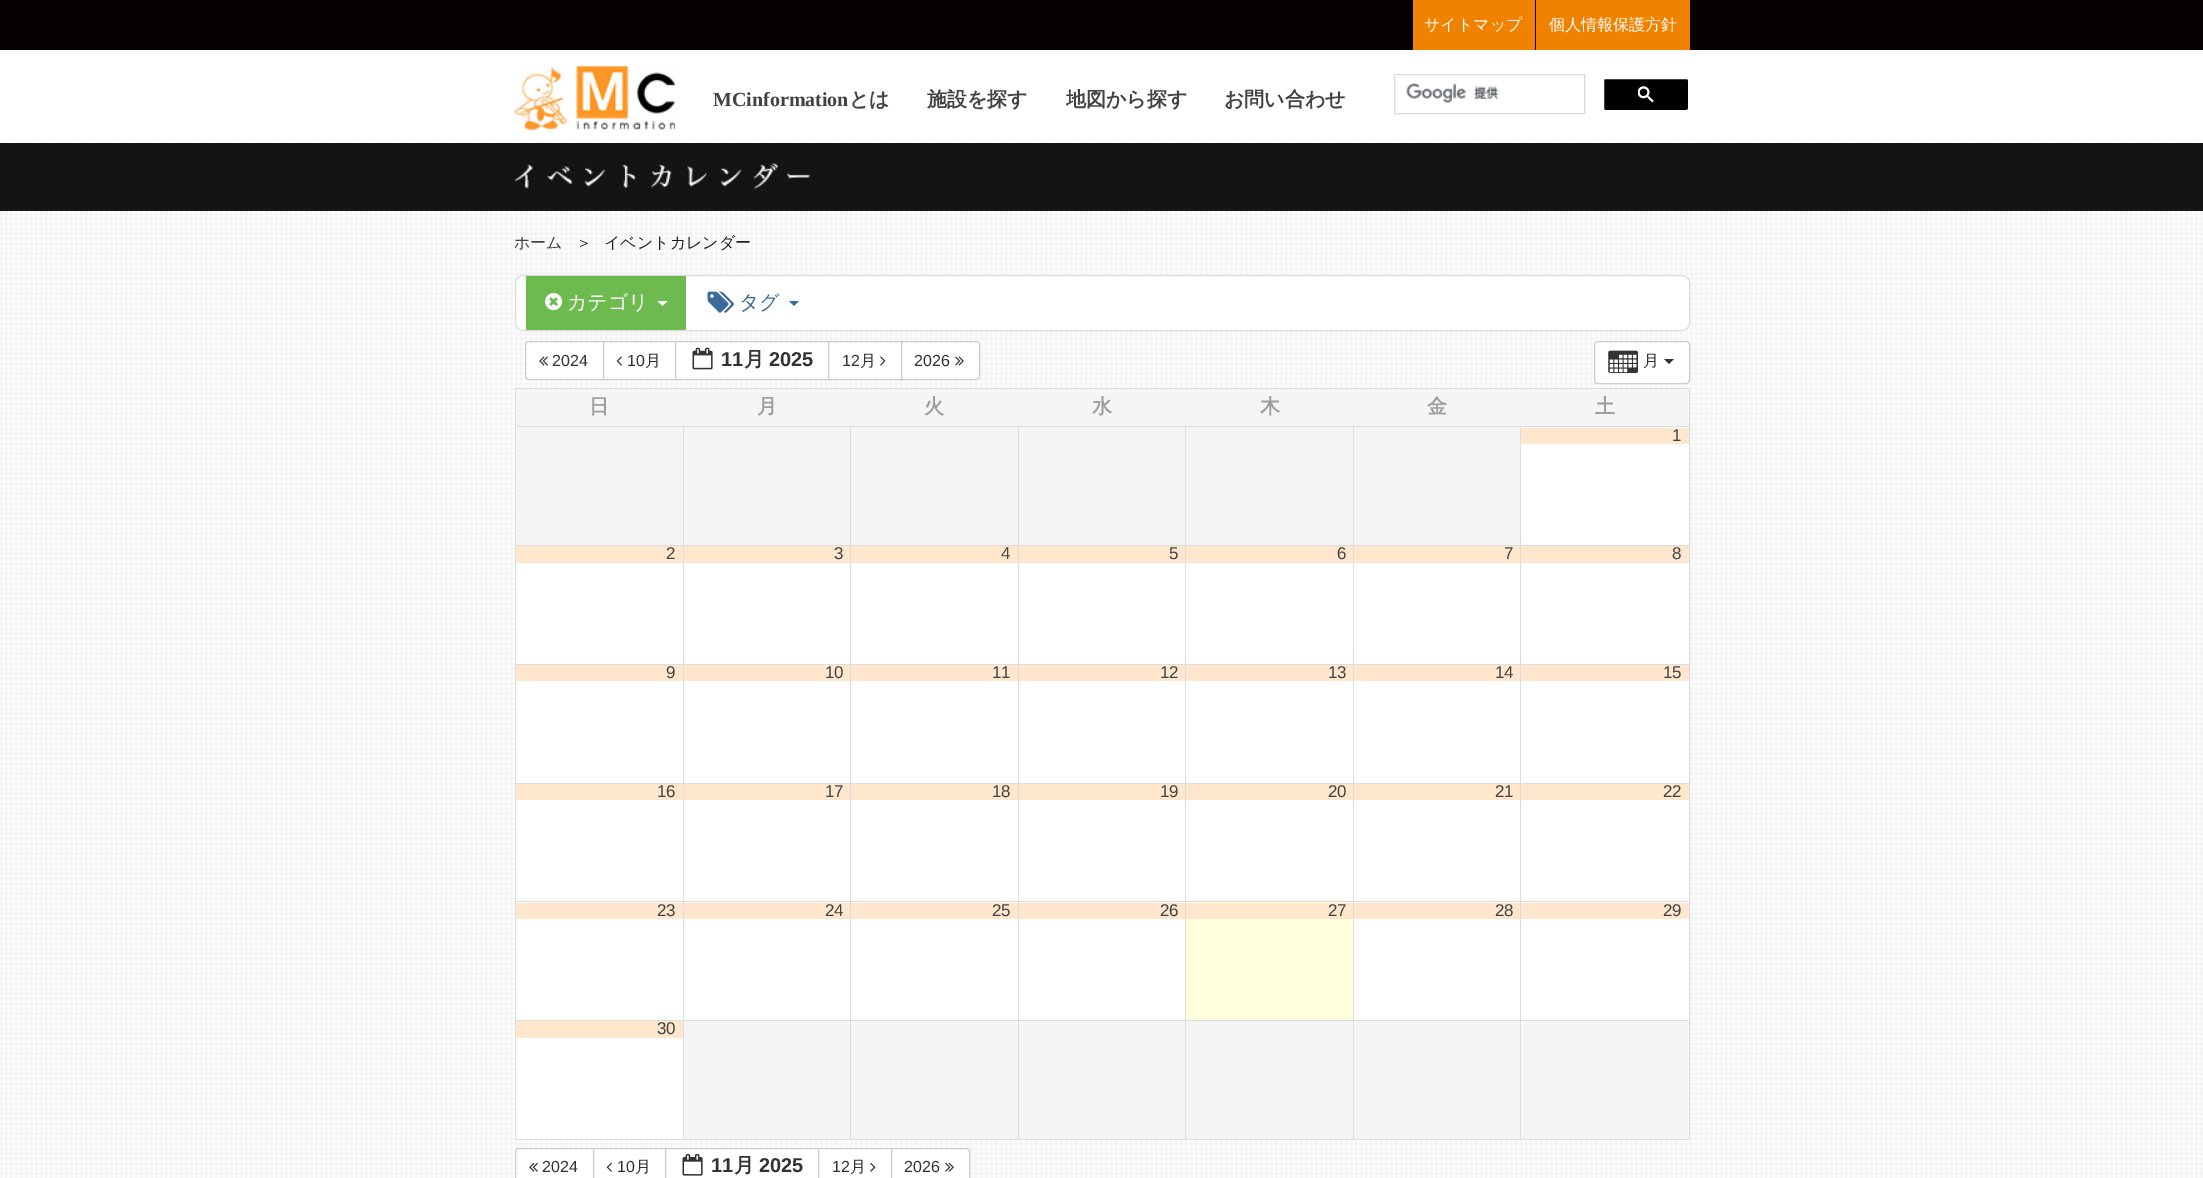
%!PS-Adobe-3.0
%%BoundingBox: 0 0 2203 1178
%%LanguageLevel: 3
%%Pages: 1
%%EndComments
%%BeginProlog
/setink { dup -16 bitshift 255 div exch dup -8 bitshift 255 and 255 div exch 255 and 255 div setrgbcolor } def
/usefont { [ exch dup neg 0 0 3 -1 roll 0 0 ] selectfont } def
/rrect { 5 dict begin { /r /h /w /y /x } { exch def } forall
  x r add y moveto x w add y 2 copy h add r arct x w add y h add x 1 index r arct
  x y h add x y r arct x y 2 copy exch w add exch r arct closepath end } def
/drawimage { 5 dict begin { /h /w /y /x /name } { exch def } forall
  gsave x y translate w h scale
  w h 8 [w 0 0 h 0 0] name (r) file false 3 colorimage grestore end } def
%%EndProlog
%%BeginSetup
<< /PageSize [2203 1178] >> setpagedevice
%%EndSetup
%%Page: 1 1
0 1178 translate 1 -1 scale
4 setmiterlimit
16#FFFFFF setink
0 0 2203 1178 rectfill
16#060001 setink
0 0 2203 50 rectfill
16#F18200 setink
1413 0 122 50 rectfill
/WenQuanYiZenHei-Medium 16 usefont
16#FFFFFF setink
1424 30 moveto (サイトマップ) show
16#F18200 setink
1536 0 154 50 rectfill
16#FFFFFF setink
1549 30 moveto (個人情報保護方針) show
(img1.raw) 515 66 161 64 drawimage
/LiberationSerif-Bold 20 usefont
16#424242 setink
713 106 moveto (MCinformation) show
/WenQuanYiZenHei-Bold 20 usefont
[
    [(とは) 849 106]
    [(施設を探す) 927 106]
    [(地図から探す) 1066 106]
    [(お問い合わせ) 1224 106]
] { aload pop moveto show } forall
16#D9D9D9 setink
1394.5 74.5 190 39 rectstroke
(img2.raw) 1406 83 93 20 drawimage
16#000000 setink
1603.5 78.5 85 32 2 rrect gsave fill grestore
16#FFFFFF setink
stroke
(img3.raw) 1638 86 16 17 drawimage
(img4.raw) 0 142 2203 1036 drawimage
16#141414 setink
0 143 2203 68 rectfill
(img5.raw) 515 162 295 27 drawimage
/WenQuanYiZenHei-Medium 16 usefont
16#424242 setink
514 248 moveto (ホーム) show
16#202020 setink
576 248 moveto (＞) show
604 248 moveto (イベントカレンダー) show
16#FFFFFF setink
515.5 275.5 1174 55 7.5 rrect gsave fill grestore
16#DBDBDB setink
stroke
16#6DBB4F setink
526 276 160 54 rectfill
(img6.raw) 545 293 18 18 drawimage
/WenQuanYiZenHei-Medium 20 usefont
16#FFFFFF setink
567 309 moveto (カテゴリ) show
657.5 301 moveto 667.5 301 lineto 662.5 306 lineto closepath fill
(img7.raw) 707 291 27 22 drawimage
16#3D6B99 setink
739 309 moveto (タグ) show
789 301 moveto 799 301 lineto 794 306 lineto closepath fill
16#FFFFFF setink
529 341.5 moveto 603.5 341.5 lineto 603.5 379.5 lineto 529 379.5 lineto 527 379.5 525.5 378 525.5 376 curveto 525.5 345 lineto 525.5 343 527 341.5 529 341.5 curveto closepath gsave fill grestore
16#CCCCCC setink
stroke
(img8.raw) 539 356 9 10 drawimage
/LiberationSans-Regular 16 usefont
16#333333 setink
552 366 moveto (2024) show
16#FFFFFF setink
603.5 341.5 moveto 675.5 341.5 lineto 675.5 379.5 lineto 603.5 379.5 lineto closepath gsave fill grestore
16#CCCCCC setink
stroke
(img9.raw) 616 356 6 10 drawimage
16#333333 setink
627 366 moveto (10) show
/WenQuanYiZenHei-Medium 16 usefont
645 366 moveto (月) show
16#FFFFFF setink
675.5 341.5 moveto 828.5 341.5 lineto 828.5 379.5 lineto 675.5 379.5 lineto closepath gsave fill grestore
16#CCCCCC setink
stroke
(img10.raw) 692 347 21 23 drawimage
/LiberationSans-Bold 20 usefont
16#333333 setink
721 366 moveto (11) show
/WenQuanYiZenHei-Bold 20 usefont
744 366 moveto (月) show
/LiberationSans-Bold 20 usefont
769 366 moveto (2025) show
16#FFFFFF setink
829 342 72 37 rectfill
16#CCCCCC setink
828.5 341.5 74 38 rectstroke
/LiberationSans-Regular 16 usefont
16#333333 setink
842 366 moveto (12) show
/WenQuanYiZenHei-Medium 16 usefont
860 366 moveto (月) show
(img11.raw) 880 356 6 10 drawimage
16#FFFFFF setink
901.5 341.5 moveto 976 341.5 lineto 978 341.5 979.5 343 979.5 345 curveto 979.5 376 lineto 979.5 378 978 379.5 976 379.5 curveto 901.5 379.5 lineto closepath gsave fill grestore
16#CCCCCC setink
stroke
/LiberationSans-Regular 16 usefont
16#333333 setink
914 366 moveto (2026) show
(img12.raw) 955 356 9 10 drawimage
16#FFFFFF setink
1594.5 341.5 95 42 3.5 rrect gsave fill grestore
16#CCCCCC setink
stroke
(img13.raw) 1608 350 30 24 drawimage
/WenQuanYiZenHei-Medium 16 usefont
16#333333 setink
1643 366 moveto (月) show
1664 359 moveto 1674 359 lineto 1669 364 lineto closepath fill
[
    [516 427 1173 712 16#FFFFFF]
    [515 388 1175 1 16#DDDDDD]
    [1689 388 1 752 16#DDDDDD]
    [515 1139 1175 1 16#DDDDDD]
    [515 388 1 752 16#DDDDDD]
    [516 389 1173 37 16#F5F5F5]
] { aload pop setink rectfill } forall
/WenQuanYiZenHei-Bold 20 usefont
16#9E9E9E setink
[
    [(日) 589 413]
    [(月) 757 413]
    [(火) 924 413]
    [(水) 1092 413]
    [(木) 1260 413]
    [(金) 1427 413]
    [(土) 1595 413]
] { aload pop moveto show } forall
[
    [516 427 167 118 16#F5F5F5]
    [1520 426 170 1 16#DDDDDD]
    [1520 545 170 1 16#DDDDDD]
    [1520 664 170 1 16#DDDDDD]
    [1520 783 170 1 16#DDDDDD]
    [1520 901 170 1 16#DDDDDD]
    [1520 1020 170 1 16#DDDDDD]
    [1520 1020 1 120 16#DDDDDD]
    [1353 1020 168 1 16#DDDDDD]
    [1520 901 1 120 16#DDDDDD]
    [1353 901 168 1 16#DDDDDD]
    [1520 783 1 120 16#DDDDDD]
    [1353 783 168 1 16#DDDDDD]
    [1520 664 1 120 16#DDDDDD]
    [1353 664 168 1 16#DDDDDD]
    [1520 545 1 120 16#DDDDDD]
    [1353 545 168 1 16#DDDDDD]
    [1520 426 1 120 16#DDDDDD]
    [1353 426 168 1 16#DDDDDD]
    [1353 1020 1 120 16#DDDDDD]
    [1185 1020 169 1 16#DDDDDD]
    [1353 901 1 120 16#DDDDDD]
    [1185 901 169 1 16#DDDDDD]
    [1353 783 1 120 16#DDDDDD]
    [1185 783 169 1 16#DDDDDD]
    [1353 664 1 120 16#DDDDDD]
    [1185 664 169 1 16#DDDDDD]
    [1353 545 1 120 16#DDDDDD]
    [1185 545 169 1 16#DDDDDD]
    [1353 426 1 120 16#DDDDDD]
    [1185 426 169 1 16#DDDDDD]
    [1185 1020 1 120 16#DDDDDD]
    [1018 1020 168 1 16#DDDDDD]
    [1185 901 1 120 16#DDDDDD]
    [1018 901 168 1 16#DDDDDD]
    [1185 783 1 120 16#DDDDDD]
    [1018 783 168 1 16#DDDDDD]
    [1185 664 1 120 16#DDDDDD]
    [1018 664 168 1 16#DDDDDD]
    [1185 545 1 120 16#DDDDDD]
    [1018 545 168 1 16#DDDDDD]
    [1185 426 1 120 16#DDDDDD]
    [1018 426 168 1 16#DDDDDD]
    [1018 1020 1 120 16#DDDDDD]
    [850 1020 169 1 16#DDDDDD]
    [1018 901 1 120 16#DDDDDD]
    [850 901 169 1 16#DDDDDD]
    [1018 783 1 120 16#DDDDDD]
    [850 783 169 1 16#DDDDDD]
    [1018 664 1 120 16#DDDDDD]
    [850 664 169 1 16#DDDDDD]
    [1018 545 1 120 16#DDDDDD]
    [850 545 169 1 16#DDDDDD]
    [1018 426 1 120 16#DDDDDD]
    [850 426 169 1 16#DDDDDD]
    [850 1020 1 120 16#DDDDDD]
    [683 1020 168 1 16#DDDDDD]
    [850 901 1 120 16#DDDDDD]
    [683 901 168 1 16#DDDDDD]
    [850 783 1 120 16#DDDDDD]
    [683 783 168 1 16#DDDDDD]
    [850 664 1 120 16#DDDDDD]
    [683 664 168 1 16#DDDDDD]
    [850 545 1 120 16#DDDDDD]
    [683 545 168 1 16#DDDDDD]
    [850 426 1 120 16#DDDDDD]
    [683 426 168 1 16#DDDDDD]
    [683 1020 1 120 16#DDDDDD]
    [515 1020 169 1 16#DDDDDD]
    [683 901 1 120 16#DDDDDD]
    [515 901 169 1 16#DDDDDD]
    [683 783 1 120 16#DDDDDD]
    [515 783 169 1 16#DDDDDD]
    [683 664 1 120 16#DDDDDD]
    [515 664 169 1 16#DDDDDD]
    [683 545 1 120 16#DDDDDD]
    [515 545 169 1 16#DDDDDD]
    [683 426 1 120 16#DDDDDD]
    [515 426 169 1 16#DDDDDD]
    [684 427 166 118 16#F5F5F5]
    [851 427 167 118 16#F5F5F5]
    [1019 427 166 118 16#F5F5F5]
    [1186 427 167 118 16#F5F5F5]
    [1354 427 166 118 16#F5F5F5]
    [1521 428 168 16 16#FFE7CE]
] { aload pop setink rectfill } forall
/LiberationSans-Regular 17 usefont
16#424242 setink
1672 441 moveto (1) show
16#FFE7CE setink
516 546 167 17 rectfill
16#424242 setink
666 559 moveto (2) show
16#FFE7CE setink
684 546 166 17 rectfill
16#424242 setink
834 559 moveto (3) show
16#FFE7CE setink
851 546 167 17 rectfill
16#424242 setink
1001 559 moveto (4) show
16#FFE7CE setink
1019 546 166 17 rectfill
16#424242 setink
1169 559 moveto (5) show
16#FFE7CE setink
1186 546 167 17 rectfill
16#424242 setink
1337 559 moveto (6) show
16#FFE7CE setink
1354 546 166 17 rectfill
16#424242 setink
1504 559 moveto (7) show
16#FFE7CE setink
1521 546 168 17 rectfill
16#424242 setink
1672 559 moveto (8) show
16#FFE7CE setink
516 665 167 16 rectfill
16#424242 setink
666 678 moveto (9) show
16#FFE7CE setink
684 665 166 16 rectfill
16#424242 setink
825 678 moveto (10) show
16#FFE7CE setink
851 665 167 16 rectfill
16#424242 setink
992 678 moveto (11) show
16#FFE7CE setink
1019 665 166 16 rectfill
16#424242 setink
1160 678 moveto (12) show
16#FFE7CE setink
1186 665 167 16 rectfill
16#424242 setink
1328 678 moveto (13) show
16#FFE7CE setink
1354 665 166 16 rectfill
16#424242 setink
1495 678 moveto (14) show
16#FFE7CE setink
1521 665 168 16 rectfill
16#424242 setink
1663 678 moveto (15) show
16#FFE7CE setink
516 784 167 16 rectfill
16#424242 setink
657 797 moveto (16) show
16#FFE7CE setink
684 784 166 16 rectfill
16#424242 setink
825 797 moveto (17) show
16#FFE7CE setink
851 784 167 16 rectfill
16#424242 setink
992 797 moveto (18) show
16#FFE7CE setink
1019 784 166 16 rectfill
16#424242 setink
1160 797 moveto (19) show
16#FFE7CE setink
1186 784 167 16 rectfill
16#424242 setink
1328 797 moveto (20) show
16#FFE7CE setink
1354 784 166 16 rectfill
16#424242 setink
1495 797 moveto (21) show
16#FFE7CE setink
1521 784 168 16 rectfill
16#424242 setink
1663 797 moveto (22) show
16#FFE7CE setink
516 903 167 16 rectfill
16#424242 setink
657 916 moveto (23) show
16#FFE7CE setink
684 903 166 16 rectfill
16#424242 setink
825 916 moveto (24) show
16#FFE7CE setink
851 903 167 16 rectfill
16#424242 setink
992 916 moveto (25) show
16#FFE7CE setink
1019 903 166 16 rectfill
16#424242 setink
1160 916 moveto (26) show
16#FFFFDD setink
1186 902 167 118 rectfill
16#FFE7CE setink
1186 903 167 16 rectfill
16#424242 setink
1328 916 moveto (27) show
16#FFE7CE setink
1354 903 166 16 rectfill
16#424242 setink
1495 916 moveto (28) show
16#FFE7CE setink
1521 903 168 16 rectfill
16#424242 setink
1663 916 moveto (29) show
16#FFE7CE setink
516 1021 167 17 rectfill
16#424242 setink
657 1034 moveto (30) show
[
    [684 1021 166 118 16#F5F5F5]
    [851 1021 167 118 16#F5F5F5]
    [1019 1021 166 118 16#F5F5F5]
    [1186 1021 167 118 16#F5F5F5]
    [1354 1021 166 118 16#F5F5F5]
    [1521 1021 168 118 16#F5F5F5]
] { aload pop setink rectfill } forall
16#FFFFFF setink
519 1148.5 moveto 593.5 1148.5 lineto 593.5 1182.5 lineto 519 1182.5 lineto 517 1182.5 515.5 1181 515.5 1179 curveto 515.5 1152 lineto 515.5 1150 517 1148.5 519 1148.5 curveto closepath gsave fill grestore
16#CCCCCC setink
stroke
(img14.raw) 529 1162 9 10 drawimage
/LiberationSans-Regular 16 usefont
16#333333 setink
542 1172 moveto (2024) show
16#FFFFFF setink
593.5 1148.5 moveto 665.5 1148.5 lineto 665.5 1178.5 lineto 593.5 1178.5 lineto closepath gsave fill grestore
16#CCCCCC setink
stroke
(img15.raw) 606 1162 6 10 drawimage
16#333333 setink
617 1172 moveto (10) show
/WenQuanYiZenHei-Medium 16 usefont
635 1172 moveto (月) show
16#FFFFFF setink
665.5 1148.5 moveto 818.5 1148.5 lineto 818.5 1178.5 lineto 665.5 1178.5 lineto closepath gsave fill grestore
16#CCCCCC setink
stroke
(img16.raw) 682 1153 21 23 drawimage
/LiberationSans-Bold 20 usefont
16#333333 setink
711 1172 moveto (11) show
/WenQuanYiZenHei-Bold 20 usefont
734 1172 moveto (月) show
/LiberationSans-Bold 20 usefont
759 1172 moveto (2025) show
16#FFFFFF setink
819 1149 72 29 rectfill
16#CCCCCC setink
818.5 1148.5 74 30 rectstroke
/LiberationSans-Regular 16 usefont
16#333333 setink
832 1172 moveto (12) show
/WenQuanYiZenHei-Medium 16 usefont
850 1172 moveto (月) show
(img17.raw) 870 1162 6 10 drawimage
16#FFFFFF setink
891.5 1148.5 moveto 966 1148.5 lineto 968 1148.5 969.5 1150 969.5 1152 curveto 969.5 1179 lineto 969.5 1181 968 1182.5 966 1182.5 curveto 891.5 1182.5 lineto closepath gsave fill grestore
16#CCCCCC setink
stroke
/LiberationSans-Regular 16 usefont
16#333333 setink
904 1172 moveto (2026) show
(img18.raw) 945 1162 9 10 drawimage
showpage
%%EOF
